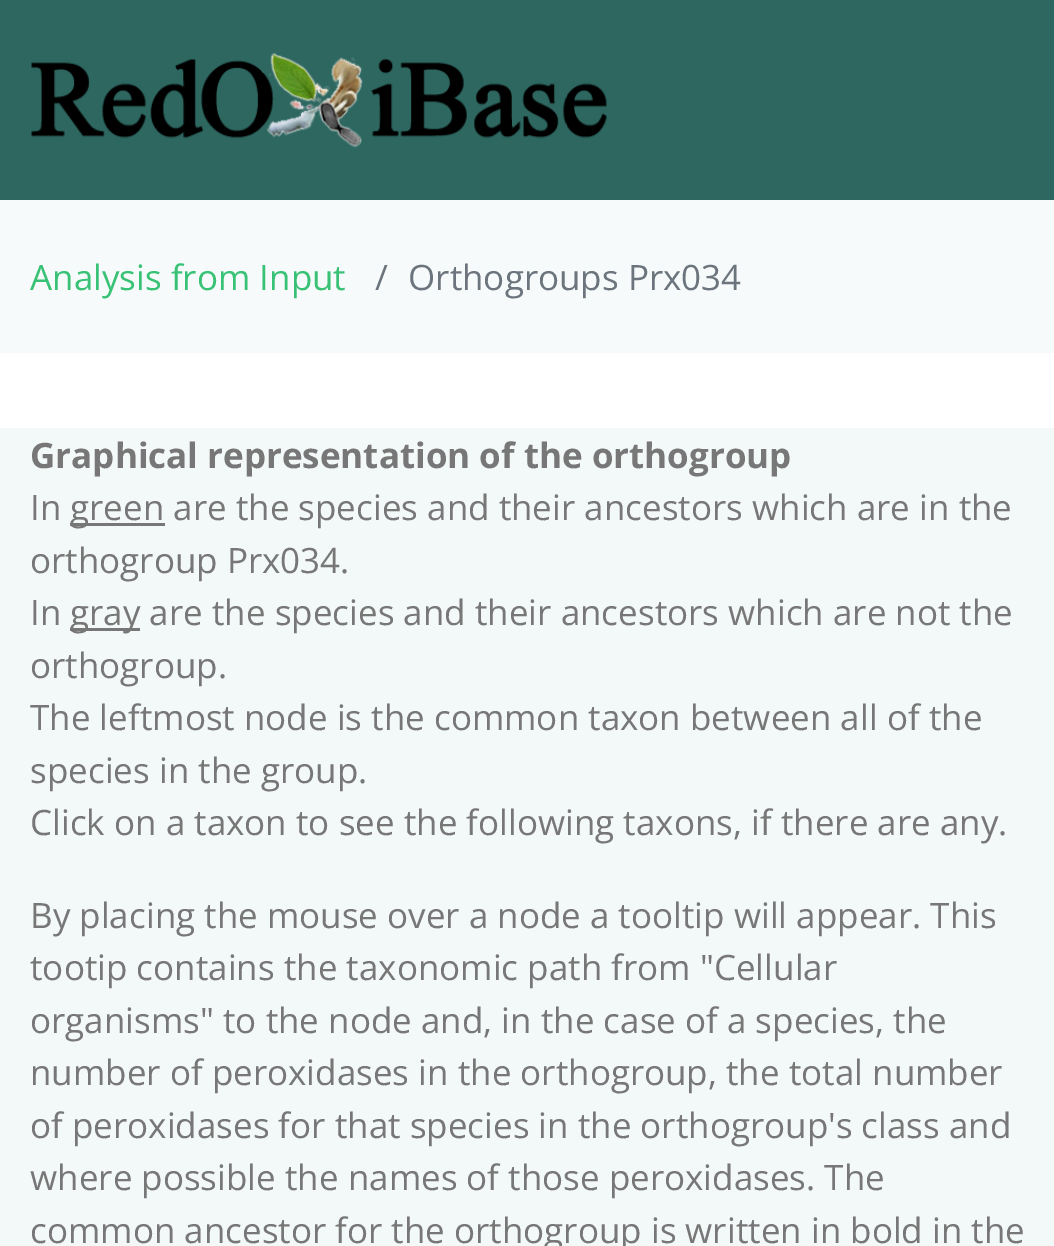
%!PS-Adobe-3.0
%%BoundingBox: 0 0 1054 1246
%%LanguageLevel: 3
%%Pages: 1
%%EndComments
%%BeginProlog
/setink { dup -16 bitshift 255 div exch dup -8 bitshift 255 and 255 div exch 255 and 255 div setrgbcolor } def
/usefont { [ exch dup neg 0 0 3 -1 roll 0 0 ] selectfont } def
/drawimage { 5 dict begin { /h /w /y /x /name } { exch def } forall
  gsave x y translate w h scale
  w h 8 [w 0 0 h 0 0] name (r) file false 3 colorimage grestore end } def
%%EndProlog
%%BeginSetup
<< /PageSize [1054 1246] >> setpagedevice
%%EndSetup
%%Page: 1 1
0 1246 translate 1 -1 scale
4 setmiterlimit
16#FFFFFF setink
0 0 1054 1246 rectfill
16#2D6760 setink
0 0 1054 200 rectfill
(img1.raw) 31 53 576 95 drawimage
16#F6FAFA setink
0 200 1054 153 rectfill
/OpenSans-Regular 35 usefont
16#39C276 setink
30 290 moveto (Analysis from Input) show
16#6C757D setink
375 290 moveto (/) show
408 290 moveto (Orthogroups Prx034) show
16#F2F9F8 setink
0 428 1054 818 rectfill
/OpenSans-Bold 35 usefont
16#777777 setink
30 468 moveto (Graphical representation of the orthogroup) show
/OpenSans-Regular 35 usefont
30 520 moveto (In) show
70 523 95 3 rectfill
[
    [(green are the species and their ancestors which are in the) 70 520]
    [(orthogroup Prx034.) 30 573]
    [(In) 30 625]
] { aload pop moveto show } forall
70 628 70 3 rectfill
[
    [(gray are the species and their ancestors which are not the) 70 625]
    [(orthogroup.) 30 678]
    [(The leftmost node is the common taxon between all of the) 30 730]
    [(species in the group.) 30 783]
    [(Click on a taxon to see the following taxons, if there are any.) 30 835]
    [(By placing the mouse over a node a tooltip will appear. This) 30 928]
    [(tootip contains the taxonomic path from "Cellular) 30 980]
    [(organisms" to the node and, in the case of a species, the) 30 1033]
    [(number of peroxidases in the orthogroup, the total number) 30 1085]
    [(of peroxidases for that species in the orthogroup's class and) 30 1138]
    [(where possible the names of those peroxidases. The) 30 1190]
    [(common ancestor for the orthogroup is written in bold in the) 30 1243]
] { aload pop moveto show } forall
showpage
%%EOF
